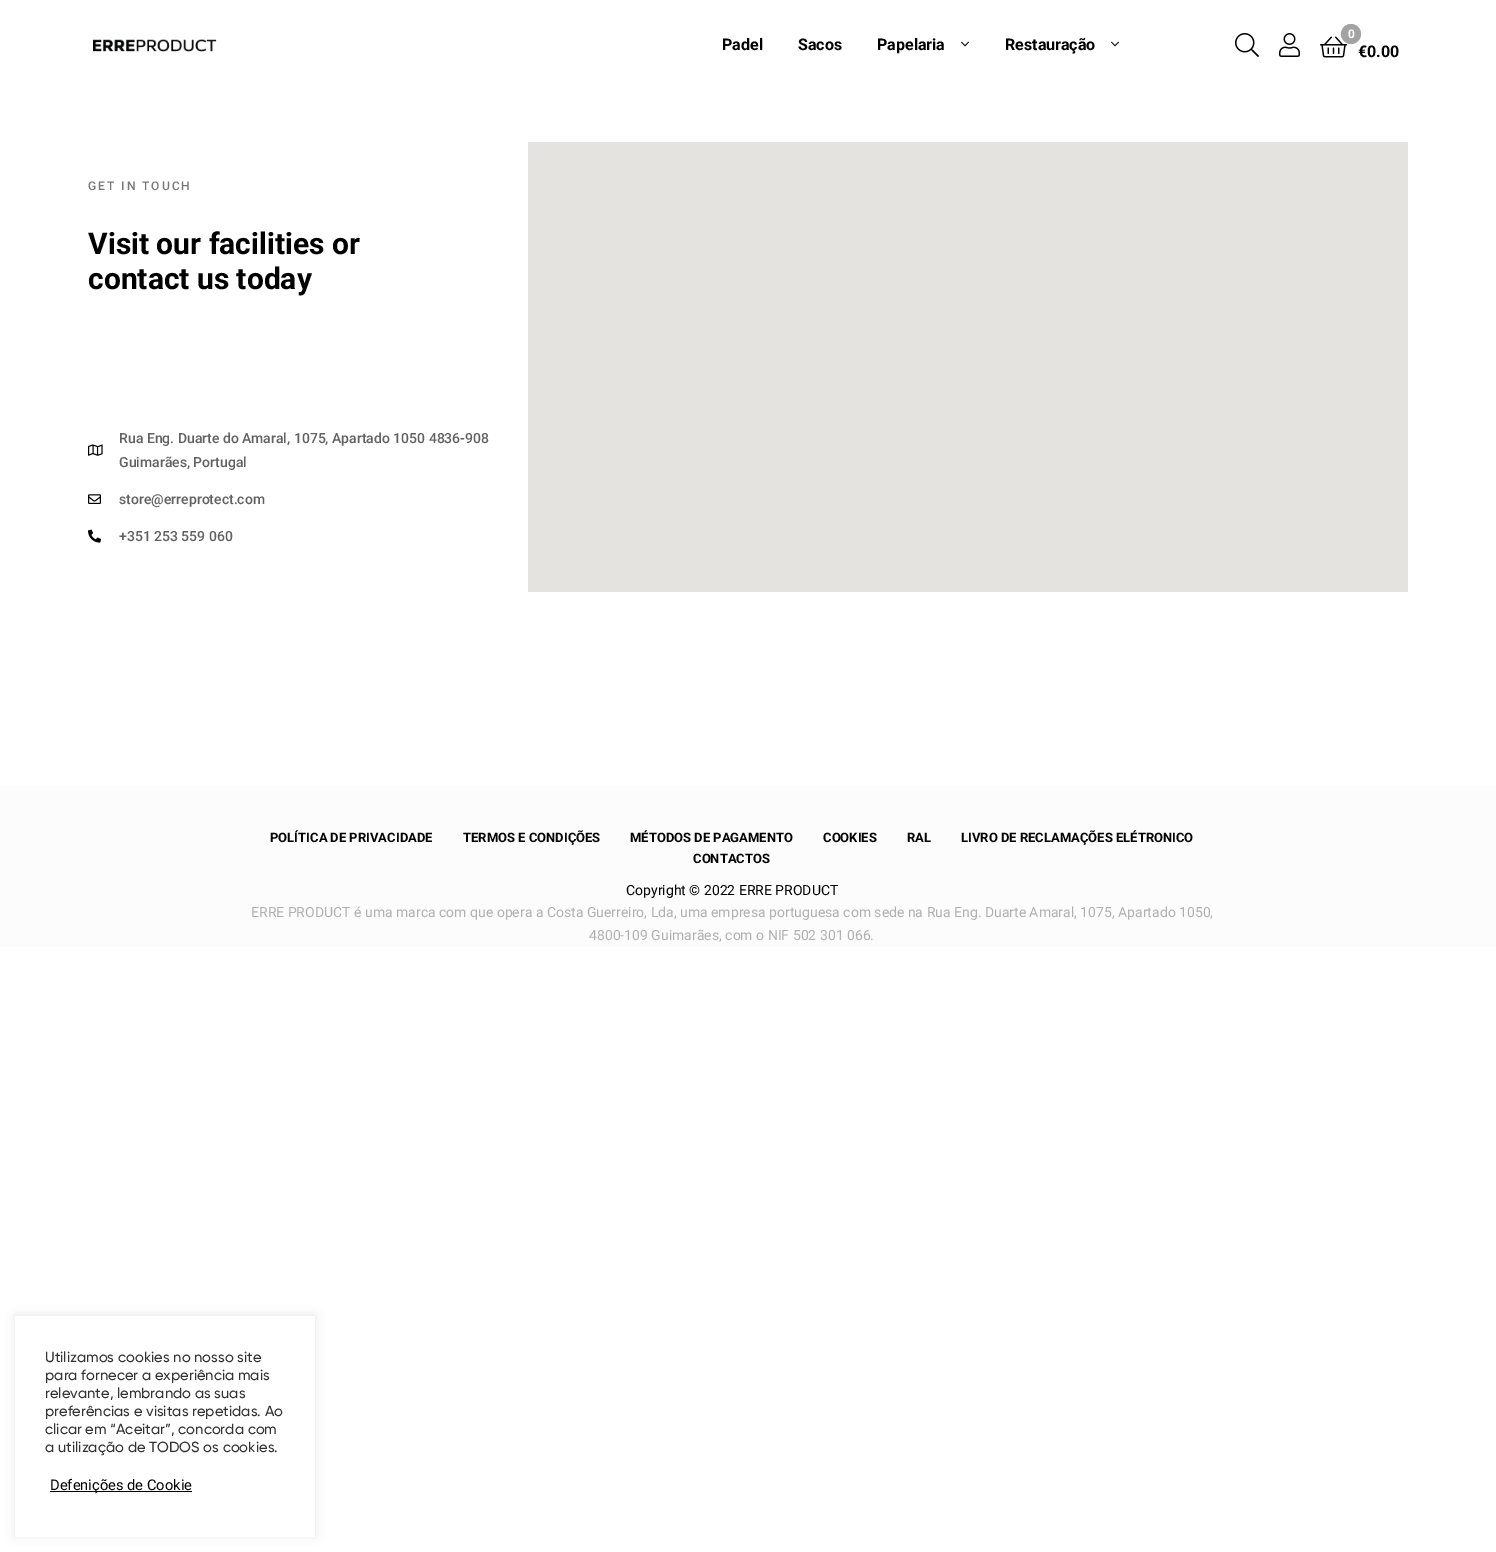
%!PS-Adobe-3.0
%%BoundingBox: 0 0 1496 1552
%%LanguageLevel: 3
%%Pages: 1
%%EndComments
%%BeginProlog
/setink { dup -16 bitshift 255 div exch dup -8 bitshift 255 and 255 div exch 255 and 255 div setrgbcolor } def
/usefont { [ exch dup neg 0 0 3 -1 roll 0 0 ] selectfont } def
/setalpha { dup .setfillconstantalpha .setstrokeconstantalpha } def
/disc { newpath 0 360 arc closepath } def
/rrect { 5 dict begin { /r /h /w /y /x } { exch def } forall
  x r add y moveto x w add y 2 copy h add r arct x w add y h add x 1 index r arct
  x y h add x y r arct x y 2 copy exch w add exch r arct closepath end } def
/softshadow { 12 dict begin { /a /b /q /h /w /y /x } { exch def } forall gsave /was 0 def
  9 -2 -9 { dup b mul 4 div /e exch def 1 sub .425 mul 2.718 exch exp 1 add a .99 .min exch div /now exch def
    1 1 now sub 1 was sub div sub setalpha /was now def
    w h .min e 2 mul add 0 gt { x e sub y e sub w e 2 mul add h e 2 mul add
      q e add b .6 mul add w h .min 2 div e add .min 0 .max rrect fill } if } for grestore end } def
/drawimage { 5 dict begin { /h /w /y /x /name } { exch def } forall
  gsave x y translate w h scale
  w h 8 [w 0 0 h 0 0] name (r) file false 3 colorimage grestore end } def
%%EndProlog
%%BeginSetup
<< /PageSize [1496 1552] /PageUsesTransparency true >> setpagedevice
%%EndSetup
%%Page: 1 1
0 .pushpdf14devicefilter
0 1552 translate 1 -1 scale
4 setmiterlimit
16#FFFFFF setink
0 0 1496 1552 rectfill
(img1.raw) 93 39 124 13 drawimage
/Roboto-Bold 16 usefont
16#000000 setink
[
    [(Padel) 722 50]
    [(Sacos) 798 50]
    [(Papelaria) 877 50]
] { aload pop moveto show } forall
(img2.raw) 961 41 8 6 drawimage
1005 50 moveto (Restauração) show
(img2.raw) 1111 41 8 6 drawimage
(img3.raw) 1235 33 24 24 drawimage
(img4.raw) 1279 33 21 24 drawimage
(img5.raw) 1320 36 27 22 drawimage
16#A3A3A3 setink
1351 34 10 disc fill
/Roboto-Bold 12 usefont
16#FFFFFF setink
1348 38 moveto (0) show
/Roboto-Bold 16 usefont
16#000000 setink
1358 57 moveto (€0.00) show
/Roboto-Medium 12 usefont
16#787878 setink
88 190 moveto 2 0 (GET IN TOUCH) ashow
/Roboto-Bold 30 usefont
16#000000 setink
88 254 moveto (Visit our facilities or) show
88 289 moveto (contact us today) show
(img6.raw) 88 444 15 12 drawimage
/Roboto-Medium 14 usefont
16#626262 setink
119 443 moveto (Rua Eng. Duarte do Amaral, 1075, Apartado 1050 4836-908) show
119 467 moveto (Guimarães, Portugal) show
(img7.raw) 88 494 13 10 drawimage
119 504 moveto (store@erreprotect.com) show
(img8.raw) 88 529 13 14 drawimage
119 541 moveto (+351 253 559 060) show
16#E5E3DF setink
528 142 880 450 rectfill
16#FCFCFC setink
0 786 1496 161 rectfill
/Roboto-Bold 13 usefont
16#000000 setink
[
    [(POLÍTICA DE PRIVACIDADE) 270 842]
    [(TERMOS E CONDIÇÕES) 463 842]
    [(MÉTODOS DE PAGAMENTO) 630 842]
    [(COOKIES) 823 842]
    [(RAL) 907 842]
    [(LIVRO DE RECLAMAÇÕES ELÉTRONICO) 961 842]
    [(CONTACTOS) 693 863]
] { aload pop moveto show } forall
/Roboto-Regular 14 usefont
626 895 moveto (Copyright © 2022 ERRE PRODUCT) show
16#B0B0B0 setink
251 917 moveto (ERRE PRODUCT é uma marca com que opera a Costa Guerreiro, Lda, uma empresa portuguesa com sede na Rua Eng. Duarte Amaral, 1075, Apartado 1050,) show
589 940 moveto (4800-109 Guimarães, com o NIF 502 301 066.) show
gsave
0 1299 moveto 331 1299 lineto 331 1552 lineto 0 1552 lineto closepath 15 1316 moveto 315 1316 lineto 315 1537 lineto 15 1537 lineto closepath eoclip newpath
16#ACABAB setink
15 1315 300 221 0 5 0.3 softshadow
grestore
/Gilroy-Medium 14.7 usefont
16#333333 setink
[
    [(Utilizamos cookies no nosso site) 45 1362]
    [(para fornecer a experiência mais) 45 1380]
    [(relevante, lembrando as suas) 45 1398]
    [(preferências e visitas repetidas. Ao) 45 1416]
    [(clicar em “Aceitar”, concorda com) 45 1434]
    [(a utilização de TODOS os cookies.) 45 1452]
] { aload pop moveto show } forall
16#000000 setink
50 1491 142 1 rectfill
/Roboto-Regular 14.7 usefont
50 1490 moveto (Defenições de Cookie) show
.poppdf14devicefilter showpage
%%EOF
